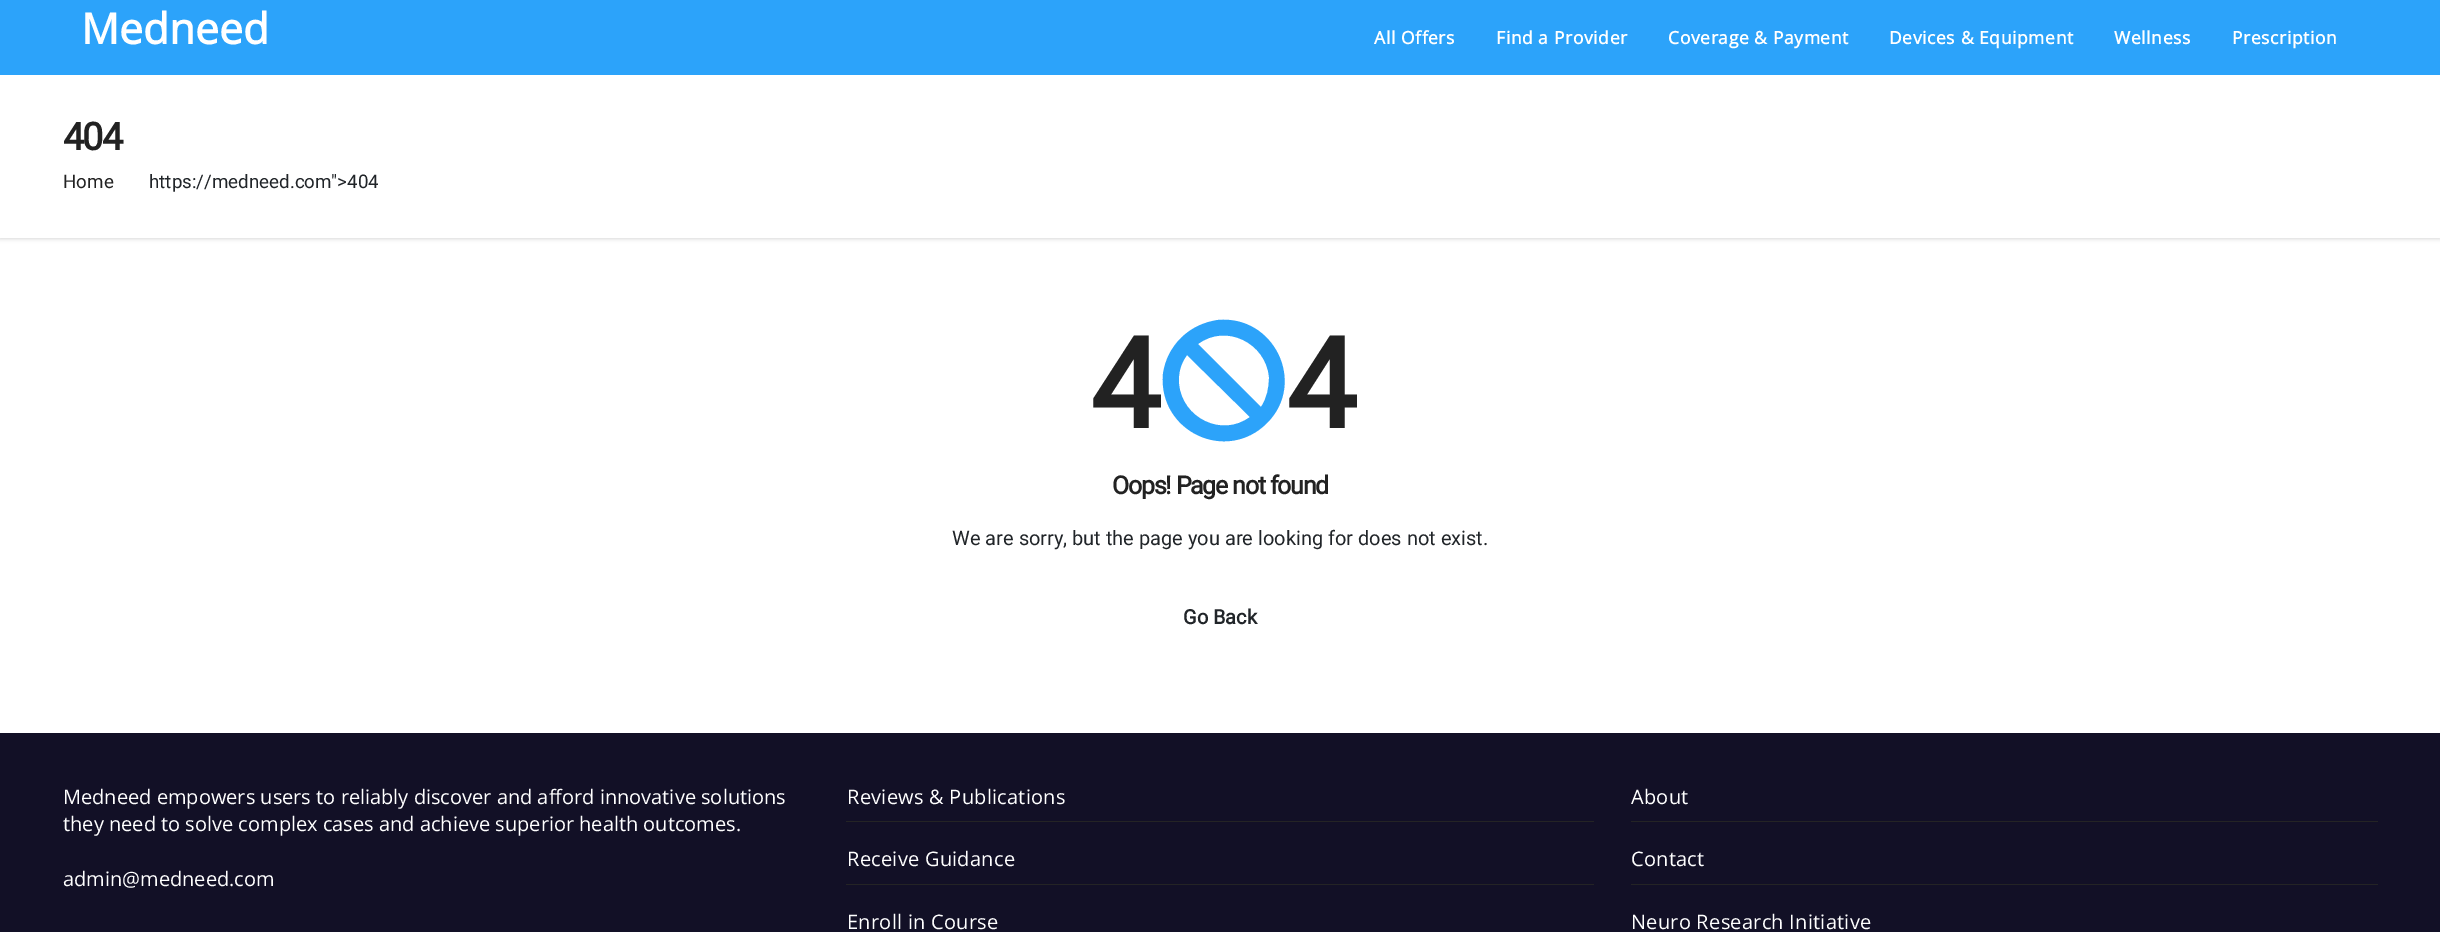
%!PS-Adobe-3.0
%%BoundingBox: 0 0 2440 932
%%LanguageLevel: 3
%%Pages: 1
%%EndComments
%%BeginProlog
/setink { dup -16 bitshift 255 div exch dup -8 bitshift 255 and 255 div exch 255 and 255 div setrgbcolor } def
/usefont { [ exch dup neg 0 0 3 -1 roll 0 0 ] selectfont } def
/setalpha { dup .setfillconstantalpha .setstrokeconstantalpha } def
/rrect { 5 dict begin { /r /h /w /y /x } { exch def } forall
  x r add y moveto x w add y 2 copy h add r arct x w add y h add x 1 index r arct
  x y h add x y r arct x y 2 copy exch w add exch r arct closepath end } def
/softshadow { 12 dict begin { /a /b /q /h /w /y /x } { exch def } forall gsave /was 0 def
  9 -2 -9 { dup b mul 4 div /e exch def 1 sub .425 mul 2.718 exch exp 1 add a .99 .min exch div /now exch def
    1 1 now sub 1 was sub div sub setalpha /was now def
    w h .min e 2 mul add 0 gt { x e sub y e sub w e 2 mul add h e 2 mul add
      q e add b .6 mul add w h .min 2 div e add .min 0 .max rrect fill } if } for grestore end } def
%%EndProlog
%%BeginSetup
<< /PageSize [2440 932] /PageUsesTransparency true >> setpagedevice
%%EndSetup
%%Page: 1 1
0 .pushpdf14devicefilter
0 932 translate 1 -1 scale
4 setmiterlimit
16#FFFFFF setink
0 0 2440 932 rectfill
16#000000 setink
0 76 2440 163 0 2 0.15 softshadow
16#2CA3FA setink
0 0 2440 75 rectfill
/OpenSans-Bold 42.5 usefont
16#FFFFFF setink
81 44 moveto (Medneed) show
/OpenSans-Bold 17.5 usefont
1374 44 moveto 0.6 0 (All Offers) ashow
1496 44 moveto 0.6 0 (Find a Provider) ashow
1668 44 moveto 0.6 0 (Coverage & Payment) ashow
1889 44 moveto 0.6 0 (Devices & Equipment) ashow
2114 44 moveto 0.6 0 (Wellness) ashow
2232 44 moveto 0.6 0 (Prescription) ashow
0 75 2440 163 rectfill
/Roboto-Bold 38 usefont
16#222222 setink
63 150 moveto -2 0 (404) ashow
/Roboto-Regular 18.75 usefont
63 188 moveto (Home) show
16#212529 setink
149 188 moveto (https://medneed.com">404) show
/Roboto-Bold 125 usefont
16#222222 setink
1090 428 moveto -6 0 (4) ashow
16#2CA3FA setink
1181 338 moveto 1191 328 1204 322 1218 320 curveto 1274 315 1307 383 1267 423 curveto 1226 464 1158 431 1163 374 curveto 1165 360 1171 348 1181 338 curveto closepath 1269 377 moveto 1266 343 1226 323 1198 344 curveto 1261 407 lineto 1267 398 1269 388 1269 377 curveto closepath 1179 384 moveto 1182 418 1222 438 1250 417 curveto 1187 355 lineto 1181 363 1178 373 1179 384 curveto closepath fill
16#222222 setink
1286 428 moveto -6 0 (4) ashow
/Roboto-Bold 25 usefont
1112 494 moveto -1.25 0 (Oops! Page not found) ashow
/Roboto-Regular 20 usefont
16#212529 setink
952 545 moveto (We are sorry, but the page you are looking for does not exist.) show
/Roboto-Bold 20 usefont
1183 624 moveto (Go Back) show
16#121026 setink
0 733 2440 199 rectfill
/OpenSans-Regular 20 usefont
16#FFFFFF setink
[
    [(Medneed empowers users to reliably discover and afford innovative solutions) 63 804]
    [(they need to solve complex cases and achieve superior health outcomes.) 63 831]
    [(admin@medneed.com) 63 886]
] { aload pop moveto show } forall
16#242425 setink
846 821 748 1 rectfill
16#FFFFFF setink
847 804 moveto 0.25 0 (Reviews & Publications) ashow
16#242425 setink
846 884 748 1 rectfill
16#FFFFFF setink
847 866 moveto 0.25 0 (Receive Guidance) ashow
847 929 moveto 0.25 0 (Enroll in Course) ashow
16#242425 setink
1631 821 747 1 rectfill
16#FFFFFF setink
1631 804 moveto 0.25 0 (About) ashow
16#242425 setink
1631 884 747 1 rectfill
16#FFFFFF setink
1631 866 moveto 0.25 0 (Contact) ashow
1631 929 moveto 0.25 0 (Neuro Research Initiative) ashow
.poppdf14devicefilter showpage
%%EOF
